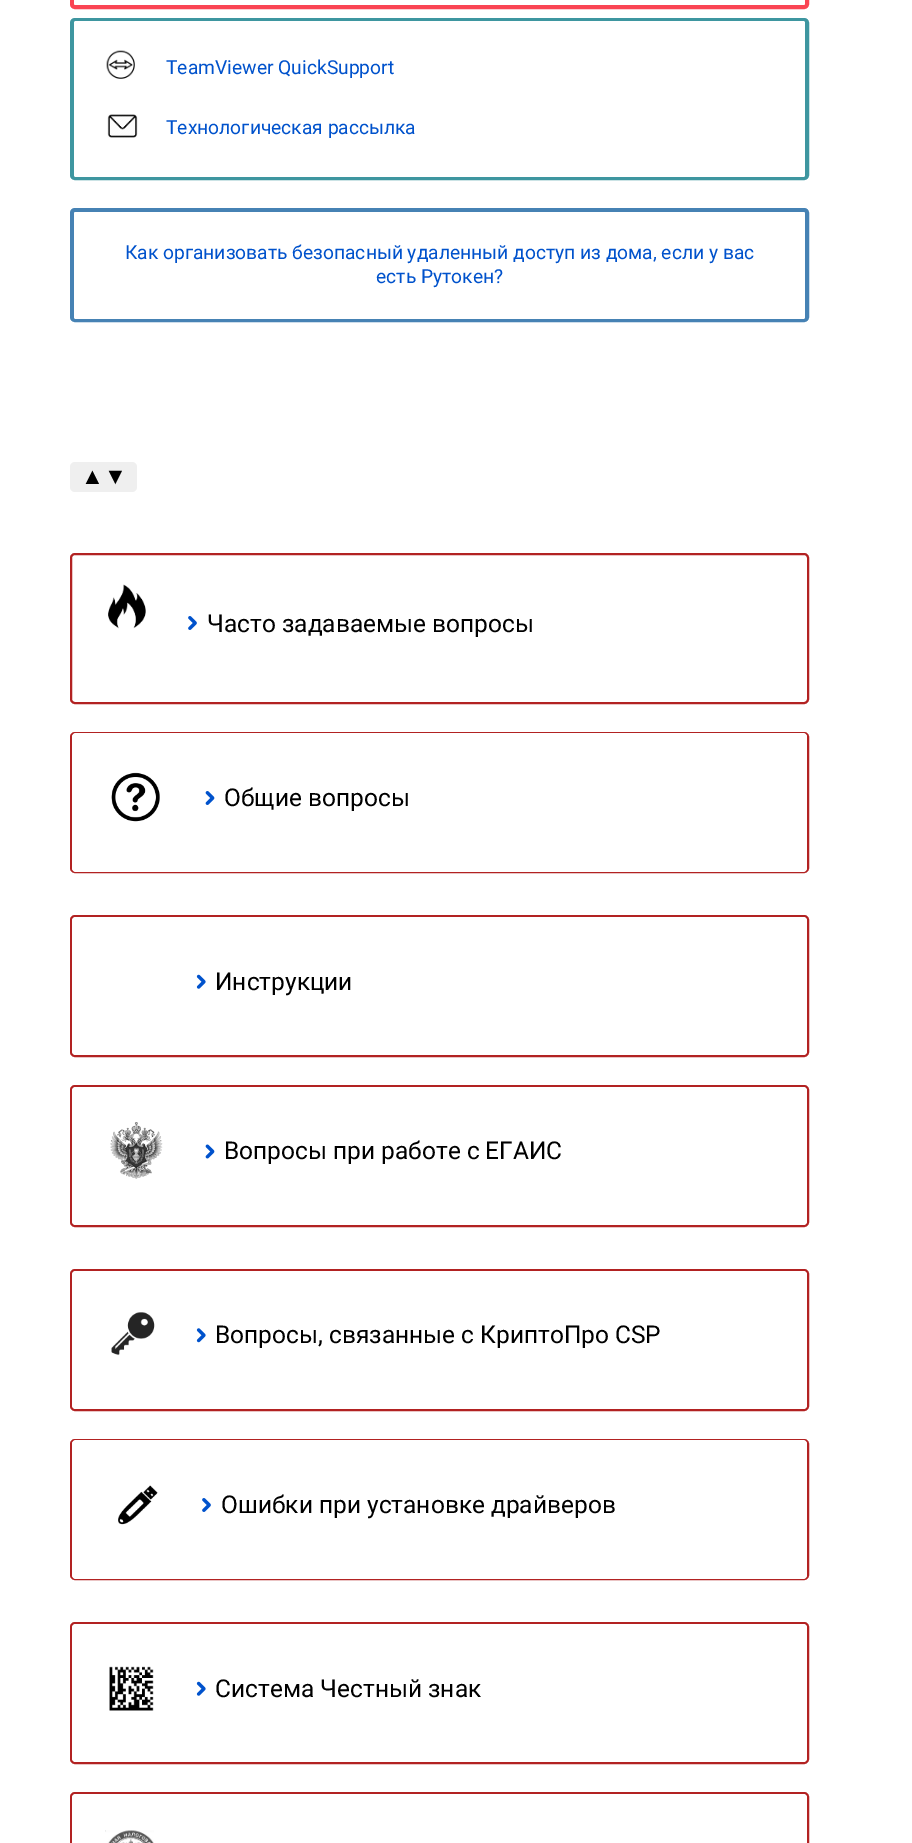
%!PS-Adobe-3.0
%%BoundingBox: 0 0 912 1843
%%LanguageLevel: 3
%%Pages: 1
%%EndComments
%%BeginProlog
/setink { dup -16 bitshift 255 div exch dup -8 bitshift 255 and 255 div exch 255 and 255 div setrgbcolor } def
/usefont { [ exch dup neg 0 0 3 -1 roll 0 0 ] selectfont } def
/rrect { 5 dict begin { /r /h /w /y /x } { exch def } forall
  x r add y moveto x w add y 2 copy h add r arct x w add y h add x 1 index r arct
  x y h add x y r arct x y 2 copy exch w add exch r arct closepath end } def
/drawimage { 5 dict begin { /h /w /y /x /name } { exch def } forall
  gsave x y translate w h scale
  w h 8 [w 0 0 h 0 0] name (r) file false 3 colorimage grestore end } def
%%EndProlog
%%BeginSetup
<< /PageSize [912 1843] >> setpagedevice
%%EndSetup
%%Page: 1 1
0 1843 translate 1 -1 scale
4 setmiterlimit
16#FFFFFF setink
0 0 912 1843 rectfill
16#FA4453 setink
4 setlinewidth
72 -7 735 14 3 rrect stroke
16#FFFFFF setink
74 -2 731 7 2 rrect fill
16#3E96A0 setink
72 20 735 158 3 rrect stroke
16#FFFFFF setink
74 21 731 156 2 rrect fill
(img1.raw) 106 50 29 29 drawimage
/Roboto-Regular 19.25 usefont
16#0052CC setink
166 74 moveto (TeamViewer QuickSupport) show
(img2.raw) 107 114 31 24 drawimage
166 134 moveto (Технологическая рассылка) show
16#4682B4 setink
72 210 735 110 3 rrect stroke
16#FFFFFF setink
74 212 731 107 2 rrect fill
16#0052CC setink
125 259 moveto (Как организовать безопасный удаленный доступ из дома, если у вас) show
376 283 moveto (есть Рутокен?) show
16#EFEFEF setink
70 462 67 30 5 rrect fill
/LiberationSans-Regular 23 usefont
16#000000 setink
81 484 moveto (▲▼) show
16#B22222 setink
2 setlinewidth
71 554 737 149 4 rrect stroke
(img3.raw) 108 584 38 45 drawimage
(img4.raw) 188 616 9 14 drawimage
/Roboto-Regular 24.5 usefont
16#000000 setink
207 632 moveto (Часто задаваемые вопросы) show
16#B22222 setink
71 733 737 139 4 rrect stroke
16#FFFFFF setink
72 733 735 139 4 rrect fill
(img5.raw) 111 772 49 50 drawimage
(img6.raw) 205 791 10 14 drawimage
16#000000 setink
224 806 moveto (Общие вопросы) show
16#B22222 setink
71 916 737 140 4 rrect stroke
16#FFFFFF setink
72 917 735 138 4 rrect fill
(img7.raw) 196 974 10 15 drawimage
16#000000 setink
215 990 moveto (Инструкции) show
16#B22222 setink
71 1086 737 140 4 rrect stroke
16#FFFFFF setink
72 1087 735 138 4 rrect fill
(img8.raw) 110 1122 53 57 drawimage
(img9.raw) 205 1144 10 15 drawimage
16#000000 setink
224 1159 moveto (Вопросы при работе c ЕГАИС) show
16#B22222 setink
71 1270 737 140 4 rrect stroke
16#FFFFFF setink
72 1271 735 138 4 rrect fill
(img10.raw) 111 1312 44 44 drawimage
(img11.raw) 196 1328 10 15 drawimage
16#000000 setink
215 1343 moveto (Вопросы, связанные с КриптоПро CSP) show
16#B22222 setink
71 1440 737 139 4 rrect stroke
16#FFFFFF setink
72 1440 735 139 4 rrect fill
(img12.raw) 118 1485 40 40 drawimage
(img4.raw) 202 1498 9 14 drawimage
16#000000 setink
221 1513 moveto (Ошибки при установке драйверов) show
16#B22222 setink
71 1623 737 140 4 rrect stroke
16#FFFFFF setink
72 1624 735 138 4 rrect fill
(img13.raw) 109 1666 45 45 drawimage
(img7.raw) 196 1681 10 15 drawimage
16#000000 setink
215 1697 moveto (Система Честный знак) show
16#B22222 setink
71 1793 737 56 4 rrect stroke
16#FFFFFF setink
72 1794 735 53 4 rrect fill
(img14.raw) 105 1830 49 13 drawimage
showpage
%%EOF
